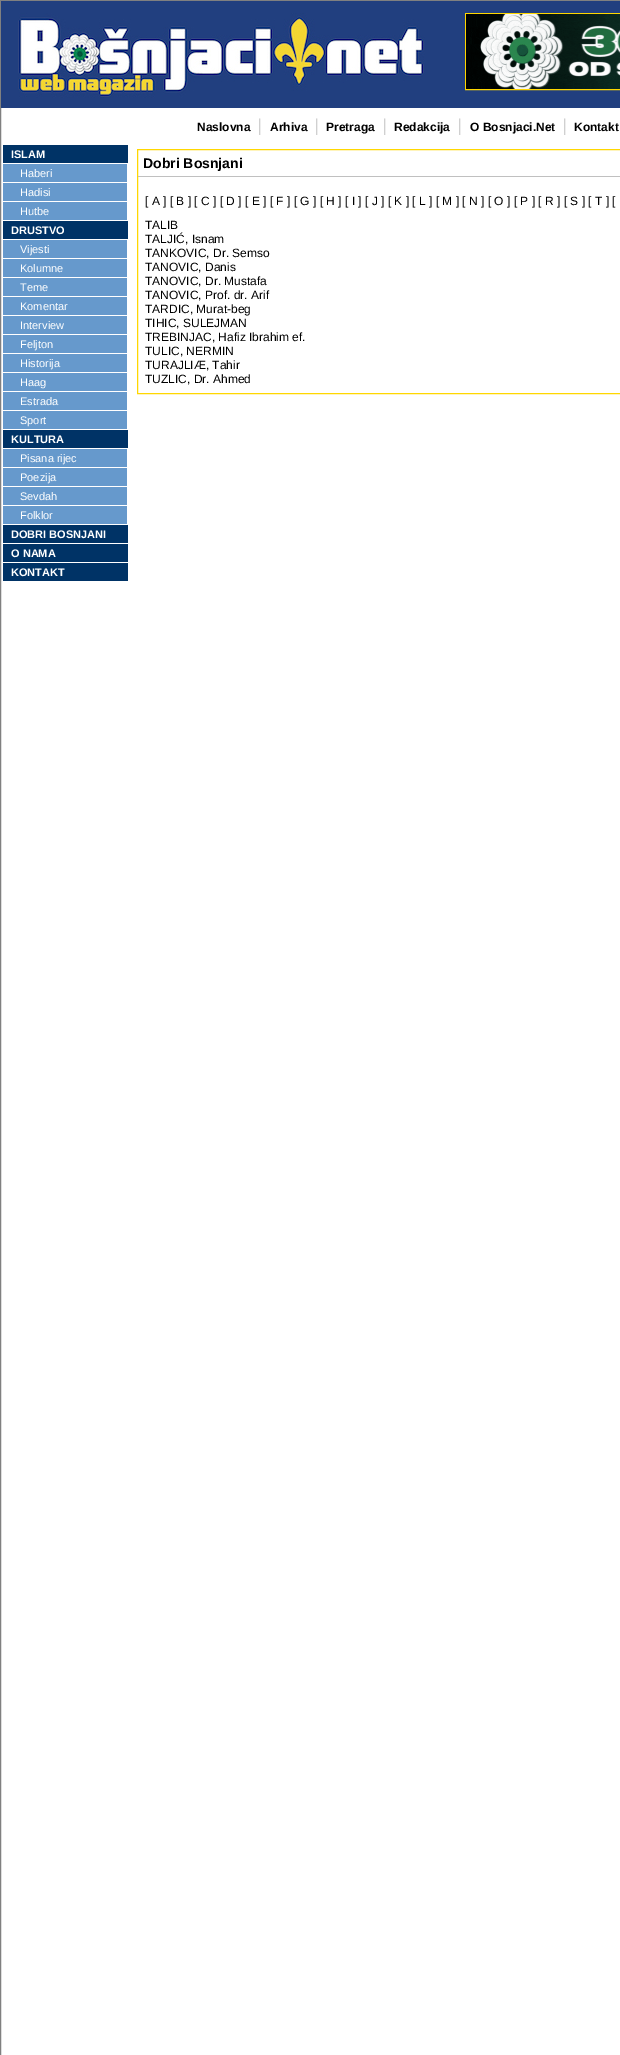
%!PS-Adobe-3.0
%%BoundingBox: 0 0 620 2055
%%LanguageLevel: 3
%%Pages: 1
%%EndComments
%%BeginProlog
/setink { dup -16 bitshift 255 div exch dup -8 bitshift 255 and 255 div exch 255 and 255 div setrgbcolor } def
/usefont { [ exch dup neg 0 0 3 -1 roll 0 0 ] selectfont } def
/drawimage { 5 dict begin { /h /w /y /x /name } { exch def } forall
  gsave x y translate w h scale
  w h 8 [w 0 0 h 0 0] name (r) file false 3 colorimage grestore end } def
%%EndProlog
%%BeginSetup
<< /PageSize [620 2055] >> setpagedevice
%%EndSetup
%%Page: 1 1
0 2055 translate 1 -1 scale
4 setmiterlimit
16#FFFFFF setink
0 0 620 2055 rectfill
16#808080 setink
0.5 0.5 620 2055 rectstroke
16#213F7F setink
1 1 619 107 rectfill
(img1.raw) 18 13 407 85 drawimage
16#FFD700 setink
465.5 13.5 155 76 rectstroke
(img2.raw) 466 14 154 75 drawimage
/LiberationSans-Bold 12 usefont
16#000000 setink
197 131 moveto (Naslovna) show
/LiberationSerif-Regular 18 usefont
16#C0C0C0 setink
258 131 moveto (|) show
/LiberationSans-Bold 12 usefont
16#000000 setink
270 131 moveto (Arhiva) show
/LiberationSerif-Regular 18 usefont
16#C0C0C0 setink
315 131 moveto (|) show
/LiberationSans-Bold 12 usefont
16#000000 setink
326 131 moveto (Pretraga) show
/LiberationSerif-Regular 18 usefont
16#C0C0C0 setink
383 131 moveto (|) show
/LiberationSans-Bold 12 usefont
16#000000 setink
394 131 moveto (Redakcija) show
/LiberationSerif-Regular 18 usefont
16#C0C0C0 setink
458 131 moveto (|) show
/LiberationSans-Bold 12 usefont
16#000000 setink
470 131 moveto (O Bosnjaci.Net) show
/LiberationSerif-Regular 18 usefont
16#C0C0C0 setink
563 131 moveto (|) show
/LiberationSans-Bold 12 usefont
16#000000 setink
574 131 moveto (Kontakt) show
16#003366 setink
3 145 125 18 rectfill
/LiberationSans-Bold 11 usefont
16#FFFFFF setink
11 158 moveto (ISLAM) show
16#6699CC setink
3 164 124 18 rectfill
/LiberationSans-Regular 11 usefont
16#FFFFFF setink
20 177 moveto (Haberi) show
16#6699CC setink
3 183 124 18 rectfill
16#FFFFFF setink
20 196 moveto (Hadisi) show
16#6699CC setink
3 202 124 18 rectfill
16#FFFFFF setink
20 215 moveto (Hutbe) show
16#003366 setink
3 221 125 18 rectfill
/LiberationSans-Bold 11 usefont
16#FFFFFF setink
11 234 moveto (DRUSTVO) show
16#6699CC setink
3 240 124 18 rectfill
/LiberationSans-Regular 11 usefont
16#FFFFFF setink
20 253 moveto (Vijesti) show
16#6699CC setink
3 259 124 18 rectfill
16#FFFFFF setink
20 272 moveto (Kolumne) show
16#6699CC setink
3 278 124 18 rectfill
16#FFFFFF setink
20 291 moveto (Teme) show
16#6699CC setink
3 297 124 18 rectfill
16#FFFFFF setink
20 310 moveto (Komentar) show
16#6699CC setink
3 316 124 18 rectfill
16#FFFFFF setink
20 329 moveto (Interview) show
16#6699CC setink
3 335 124 18 rectfill
16#FFFFFF setink
20 348 moveto (Feljton) show
16#6699CC setink
3 354 124 18 rectfill
16#FFFFFF setink
20 367 moveto (Historija) show
16#6699CC setink
3 373 124 18 rectfill
16#FFFFFF setink
20 386 moveto (Haag) show
16#6699CC setink
3 392 124 18 rectfill
16#FFFFFF setink
20 405 moveto (Estrada) show
16#6699CC setink
3 411 124 18 rectfill
16#FFFFFF setink
20 424 moveto (Sport) show
16#003366 setink
3 430 125 18 rectfill
/LiberationSans-Bold 11 usefont
16#FFFFFF setink
11 443 moveto (KULTURA) show
16#6699CC setink
3 449 124 18 rectfill
/LiberationSans-Regular 11 usefont
16#FFFFFF setink
20 462 moveto (Pisana rijec) show
16#6699CC setink
3 468 124 18 rectfill
16#FFFFFF setink
20 481 moveto (Poezija) show
16#6699CC setink
3 487 124 18 rectfill
16#FFFFFF setink
20 500 moveto (Sevdah) show
16#6699CC setink
3 506 124 18 rectfill
16#FFFFFF setink
20 519 moveto (Folklor) show
16#003366 setink
3 525 125 18 rectfill
/LiberationSans-Bold 11 usefont
16#FFFFFF setink
11 538 moveto (DOBRI BOSNJANI) show
16#003366 setink
3 544 125 18 rectfill
16#FFFFFF setink
11 557 moveto (O NAMA) show
16#003366 setink
3 563 125 18 rectfill
16#FFFFFF setink
11 576 moveto (KONTAKT) show
16#FFD700 setink
137.5 149.5 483 244 rectstroke
16#C0C0C0 setink
138 176 482 1 rectfill
/LiberationSans-Bold 14 usefont
16#000000 setink
143 168 moveto (Dobri Bosnjani) show
/LiberationSans-Regular 12 usefont
[
    [([ A ] [ B ] [ C ] [ D ] [ E ] [ F ] [ G ] [ H ] [ I ] [ J ] [ K ] [ L ] [ M ] [ N ] [ O ] [ P ] [ R ] [ S ] [ T ] [) 145 205]
    [(TALIB) 145 229]
    [(TALJIĆ, Isnam) 145 243]
    [(TANKOVIC, Dr. Semso) 145 257]
    [(TANOVIC, Danis) 145 271]
    [(TANOVIC, Dr. Mustafa) 145 285]
    [(TANOVIC, Prof. dr. Arif) 145 299]
    [(TARDIC, Murat-beg) 145 313]
    [(TIHIC, SULEJMAN) 145 327]
    [(TREBINJAC, Hafiz Ibrahim ef.) 145 341]
    [(TULIC, NERMIN) 145 355]
    [(TURAJLIÆ, Tahir) 145 369]
    [(TUZLIC, Dr. Ahmed) 145 383]
] { aload pop moveto show } forall
showpage
%%EOF
